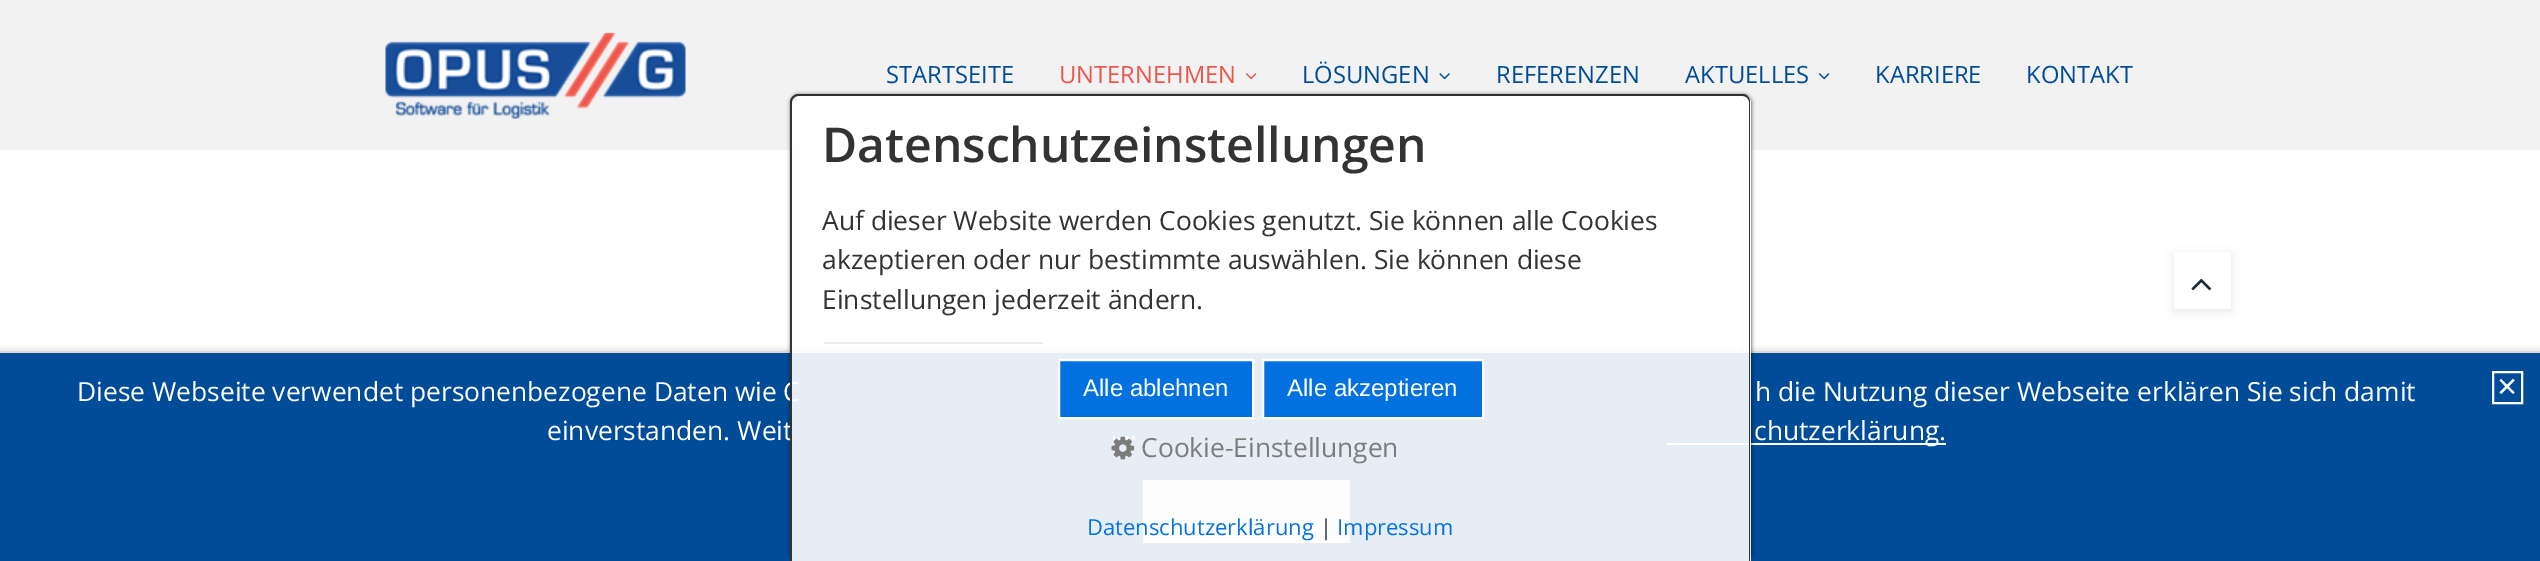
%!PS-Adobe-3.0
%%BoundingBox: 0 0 2540 561
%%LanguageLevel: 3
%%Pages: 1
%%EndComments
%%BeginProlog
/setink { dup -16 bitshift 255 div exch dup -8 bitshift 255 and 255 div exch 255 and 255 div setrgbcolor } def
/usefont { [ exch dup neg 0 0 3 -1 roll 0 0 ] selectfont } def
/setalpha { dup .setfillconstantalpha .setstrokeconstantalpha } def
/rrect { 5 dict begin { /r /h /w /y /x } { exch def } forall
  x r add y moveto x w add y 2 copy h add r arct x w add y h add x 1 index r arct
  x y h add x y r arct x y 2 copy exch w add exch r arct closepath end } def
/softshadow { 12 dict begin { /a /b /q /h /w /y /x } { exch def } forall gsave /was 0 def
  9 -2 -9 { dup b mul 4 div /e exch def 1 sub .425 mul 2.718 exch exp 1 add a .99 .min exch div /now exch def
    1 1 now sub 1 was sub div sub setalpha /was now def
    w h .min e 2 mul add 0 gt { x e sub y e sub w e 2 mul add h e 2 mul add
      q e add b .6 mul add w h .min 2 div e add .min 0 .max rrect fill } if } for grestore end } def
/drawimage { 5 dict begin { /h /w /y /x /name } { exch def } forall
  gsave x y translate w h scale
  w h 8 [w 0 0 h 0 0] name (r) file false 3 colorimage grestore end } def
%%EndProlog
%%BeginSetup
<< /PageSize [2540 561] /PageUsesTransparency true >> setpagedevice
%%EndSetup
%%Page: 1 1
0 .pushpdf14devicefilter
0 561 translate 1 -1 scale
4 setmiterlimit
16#FFFFFF setink
0 0 2540 561 rectfill
16#EEEEF0 setink
9 setlinewidth
795.5 55.5 951 393 rectstroke
16#333333 setink
824 342 219 2 rectfill
gsave
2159 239 moveto 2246 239 lineto 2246 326 lineto 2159 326 lineto closepath 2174 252 moveto 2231 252 lineto 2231 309 lineto 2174 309 lineto closepath eoclip newpath
16#000000 setink
2174 254 57 57 0 4.5 0.1 softshadow
grestore
0.75 setalpha
16#FFFFFF setink
2230 254 1 55 rectfill
1 setalpha
(img1.raw) 2191 278 21 13 drawimage
16#F2F2F2 setink
0 0 2540 150 rectfill
(img2.raw) 385 32 301 87 drawimage
/OpenSans-Regular 23.75 usefont
16#004C98 setink
886 83 moveto (STARTSEITE) show
16#EA574C setink
1059 83 moveto (UNTERNEHMEN) show
(img3.raw) 1245 73 12 7 drawimage
16#004C98 setink
1302 83 moveto (LÖSUNGEN) show
(img4.raw) 1439 73 11 7 drawimage
1496 83 moveto (REFERENZEN) show
1685 83 moveto (AKTUELLES) show
(img5.raw) 1818 73 12 7 drawimage
1875 83 moveto (KARRIERE) show
2026 83 moveto (KONTAKT) show
16#000000 setink
0 354 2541 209 0 4 0.5 softshadow
[
    [0 353 2540 208 16#004C98]
    [1667 443 279 2 16#FFFFFF]
    [1143 480 207 63 16#E7E7E7]
] { aload pop setink rectfill } forall
gsave
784 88 moveto 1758 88 lineto 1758 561 lineto 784 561 lineto closepath 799 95 moveto 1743 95 lineto 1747.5 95 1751 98.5 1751 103 curveto 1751 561 lineto 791 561 lineto 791 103 lineto 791 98.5 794.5 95 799 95 curveto closepath eoclip newpath
16#000000 setink
791 95 960 466 8 2 0.8 softshadow
grestore
/OpenSans-Regular 26.4 usefont
16#FFFFFF setink
77 401 moveto (Diese Webseite verwendet personenbezogene Daten wie C) show
547 440 moveto (einverstanden. Weit) show
0.9 setalpha
799 95 moveto 1743 95 lineto 1747.5 95 1751 98.5 1751 103 curveto 1751 561 lineto 791 561 lineto 791 103 lineto 791 98.5 794.5 95 799 95 curveto closepath fill
1 setalpha
16#333333 setink
798 94 moveto 1743 94 lineto 1747 94 1750 98 1750 102 curveto 1750 561 lineto 790 561 lineto 790 102 lineto 790 98 794 94 798 94 curveto closepath 798 96 moveto 1743 96 lineto 1746 96 1749 99 1749 102 curveto 1749 561 lineto 792 561 lineto 792 102 lineto 792 99 795 96 798 96 curveto closepath eofill
/OpenSans-SemiBold 48 usefont
822 162 moveto (Datenschutzeinstellungen) show
/OpenSans-Regular 26.4 usefont
[
    [(Auf dieser Website werden Cookies genutzt. Sie können alle Cookies) 822 230]
    [(akzeptieren oder nur bestimmte auswählen. Sie können diese) 822 269]
    [(Einstellungen jederzeit ändern.) 822 309]
] { aload pop moveto show } forall
16#0371DF setink
1059 360 moveto 1253 360 lineto 1253 418 lineto 1059 418 lineto closepath gsave fill grestore
16#FFFFFF setink
2 setlinewidth
stroke
/LiberationSans-Regular 24 usefont
1083 396 moveto (Alle ablehnen) show
16#0371DF setink
1263 360 moveto 1483 360 lineto 1483 418 lineto 1263 418 lineto closepath gsave fill grestore
16#FFFFFF setink
stroke
1287 396 moveto (Alle akzeptieren) show
(img6.raw) 1111 436 24 24 drawimage
/OpenSans-Regular 26.4 usefont
16#7C7C7C setink
1141 457 moveto (Cookie-Einstellungen) show
/OpenSans-Regular 22 usefont
16#0371DF setink
1087 535 moveto (Datenschutzerklärung) show
16#333333 setink
1320 535 moveto (|) show
16#0371DF setink
1337 535 moveto (Impressum) show
/OpenSans-Regular 26.4 usefont
16#FFFFFF setink
1755 401 moveto (h die Nutzung dieser Webseite erklären Sie sich damit) show
1754 440 moveto (chutzerklärung.) show
2493 372 29 31 rectstroke
/DejaVuSans-Regular 26.4 usefont
2496 396 moveto (✕) show
.poppdf14devicefilter showpage
%%EOF
